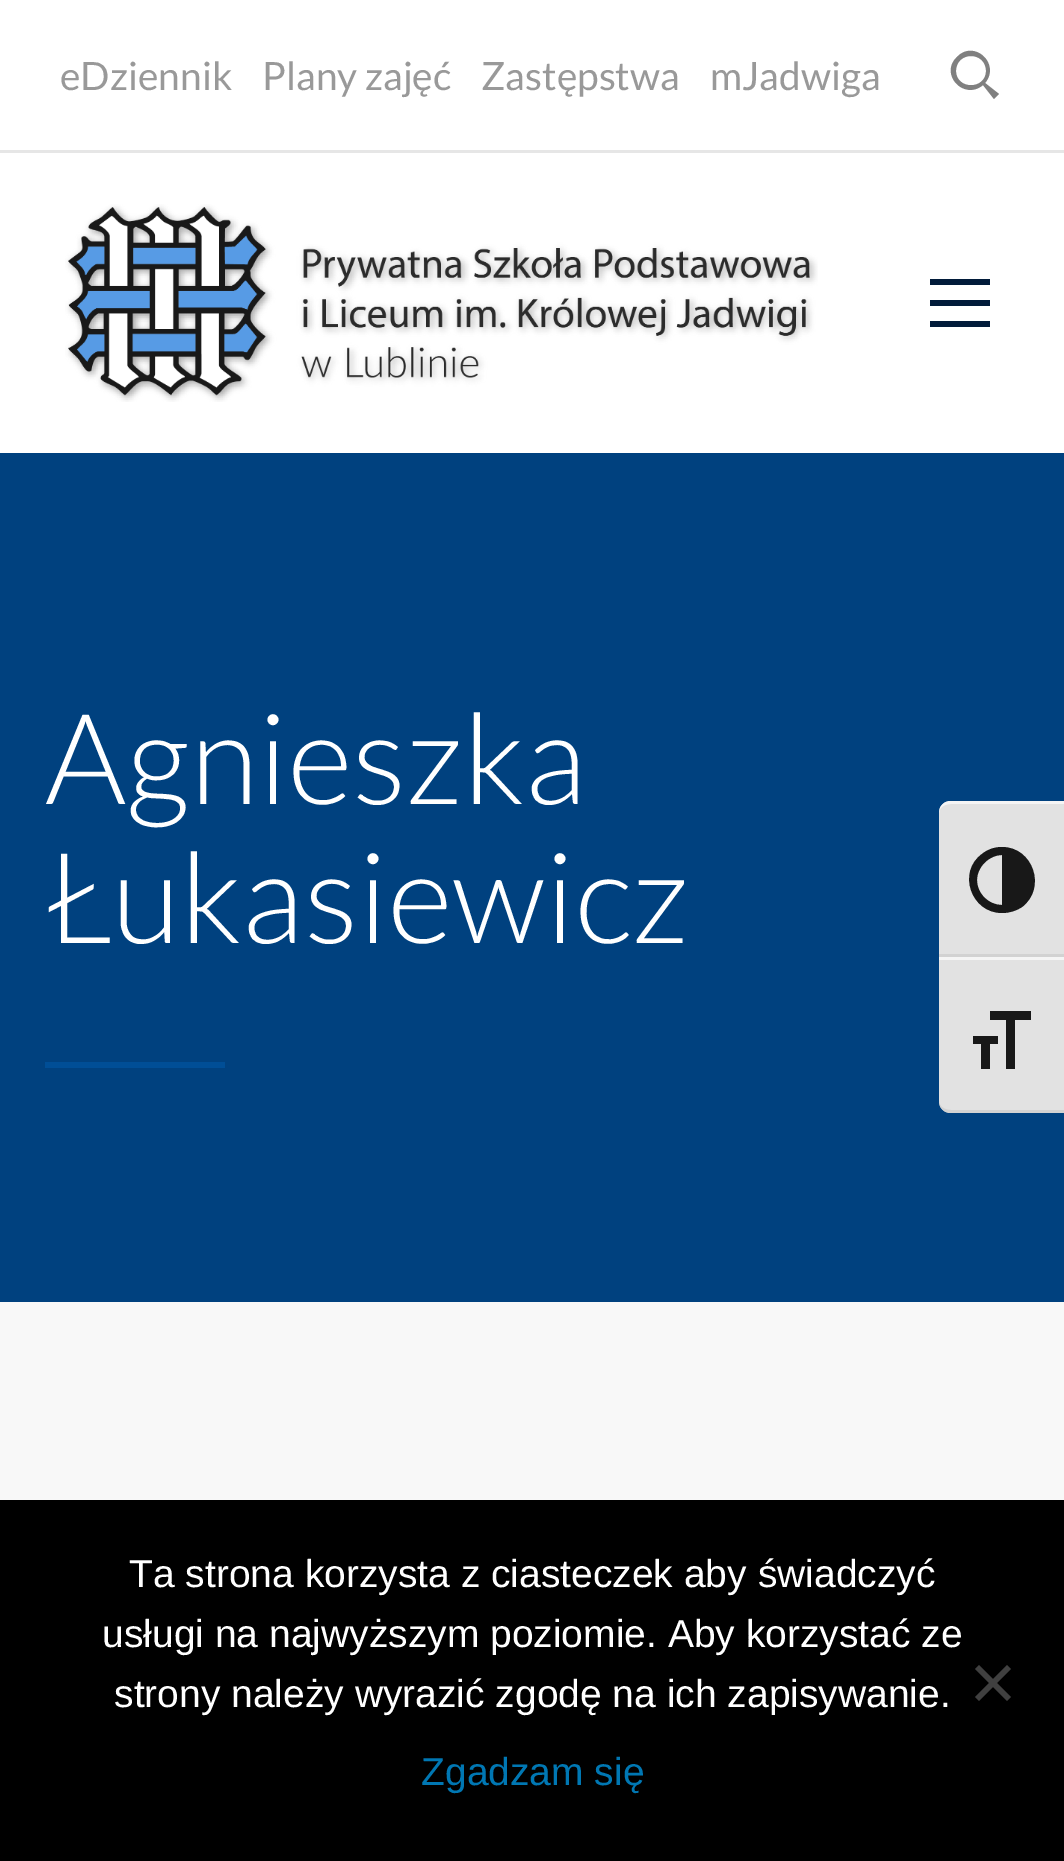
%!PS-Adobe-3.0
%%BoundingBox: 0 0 1064 1861
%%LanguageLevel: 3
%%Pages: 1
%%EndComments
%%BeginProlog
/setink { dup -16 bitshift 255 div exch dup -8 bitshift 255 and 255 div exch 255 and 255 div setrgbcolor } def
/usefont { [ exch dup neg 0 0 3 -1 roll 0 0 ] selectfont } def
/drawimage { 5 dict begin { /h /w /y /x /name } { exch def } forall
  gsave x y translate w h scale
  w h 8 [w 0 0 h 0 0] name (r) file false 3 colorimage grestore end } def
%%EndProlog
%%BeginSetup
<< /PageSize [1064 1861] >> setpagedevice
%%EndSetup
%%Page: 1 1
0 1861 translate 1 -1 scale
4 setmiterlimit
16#F8F8F8 setink
0 0 1064 1861 rectfill
16#FFFFFF setink
0 0 1064 150 rectfill
16#E6E6E6 setink
0 150 1064 3 rectfill
/Lato-Regular 39 usefont
16#999999 setink
[
    [(eDziennik) 60 90]
    [(Plany zajęć) 262 90]
    [(Zastępstwa) 481 90]
    [(mJadwiga) 710 90]
] { aload pop moveto show } forall
16#808080 setink
999 94 moveto 985 83 lineto 1001 64 974 39 957 57 curveto 939 74 964 101 983 85 curveto 994 99 lineto closepath 956 71 moveto 956 51 986 51 986 71 curveto 986 90 956 90 956 71 curveto closepath fill
16#FFFFFF setink
0 153 1064 300 rectfill
(img1.raw) 65 204 753 198 drawimage
[
    [930 300 60 6 16#011B3A]
    [930 279 60 6 16#011B3A]
    [930 321 60 6 16#011B3A]
    [0 453 1064 849 16#00417F]
] { aload pop setink rectfill } forall
/Lato-Light 126 usefont
16#FFFFFF setink
45 804 moveto (Agnieszka) show
45 943 moveto (Łukasiewicz) show
16#004E96 setink
45 1062 180 6 rectfill
16#E2E2E2 setink
951 801 moveto 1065 801 lineto 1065 957 lineto 939 957 lineto 939 813 lineto 939 806.5 944.5 801 951 801 curveto closepath fill
16#F5F5F5 setink
951 804 moveto 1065 804 lineto 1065 801 lineto 951 801 lineto 944 801 939 806 939 813 curveto 939 808 944 804 951 804 curveto closepath fill
16#D2D2D2 setink
939 954 125 3 rectfill
16#181818 setink
1002 847 moveto 995 847 988 849 982 854 curveto 957 872 971 913 1002 913 curveto 1009 913 1016 911 1022 907 curveto 1047 888 1033 847 1002 847 curveto closepath 977 880 moveto 977 867 989 855 1002 855 curveto 1002 905 lineto 989 905 977 894 977 880 curveto closepath fill
16#E2E2E2 setink
939 957 moveto 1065 957 lineto 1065 1113 lineto 951 1113 lineto 944.5 1113 939 1107.5 939 1101 curveto closepath fill
16#F5F5F5 setink
939 957 125 3 rectfill
16#D2D2D2 setink
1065 1113 moveto 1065 1110 lineto 951 1110 lineto 944 1110 939 1106 939 1101 curveto 939 1108 944 1113 951 1113 curveto closepath fill
16#181818 setink
973 1036 moveto 998 1036 lineto 998 1044 lineto 990 1044 lineto 990 1069 lineto 981 1069 lineto 981 1044 lineto 973 1044 lineto closepath 1031 1020 moveto 1015 1020 lineto 1015 1069 lineto 1006 1069 lineto 1006 1020 lineto 990 1020 lineto 990 1011 lineto 1031 1011 lineto closepath fill
16#000000 setink
0 1500 1064 361 rectfill
/LiberationSans-Regular 39 usefont
16#FFFFFF setink
[
    [(Ta strona korzysta z ciasteczek aby świadczyć) 129 1587]
    [(usługi na najwyższym poziomie. Aby korzystać ze) 102 1647]
    [(strony należy wyrazić zgodę na ich zapisywanie.) 114 1707]
] { aload pop moveto show } forall
16#404040 setink
1007 1665 moveto 1011 1669 lineto 979 1701 lineto 975 1697 lineto closepath fill
975 1669 moveto 979 1665 lineto 1011 1697 lineto 1007 1701 lineto closepath fill
16#0077B3 setink
421 1785 moveto (Zgadzam się) show
showpage
%%EOF
